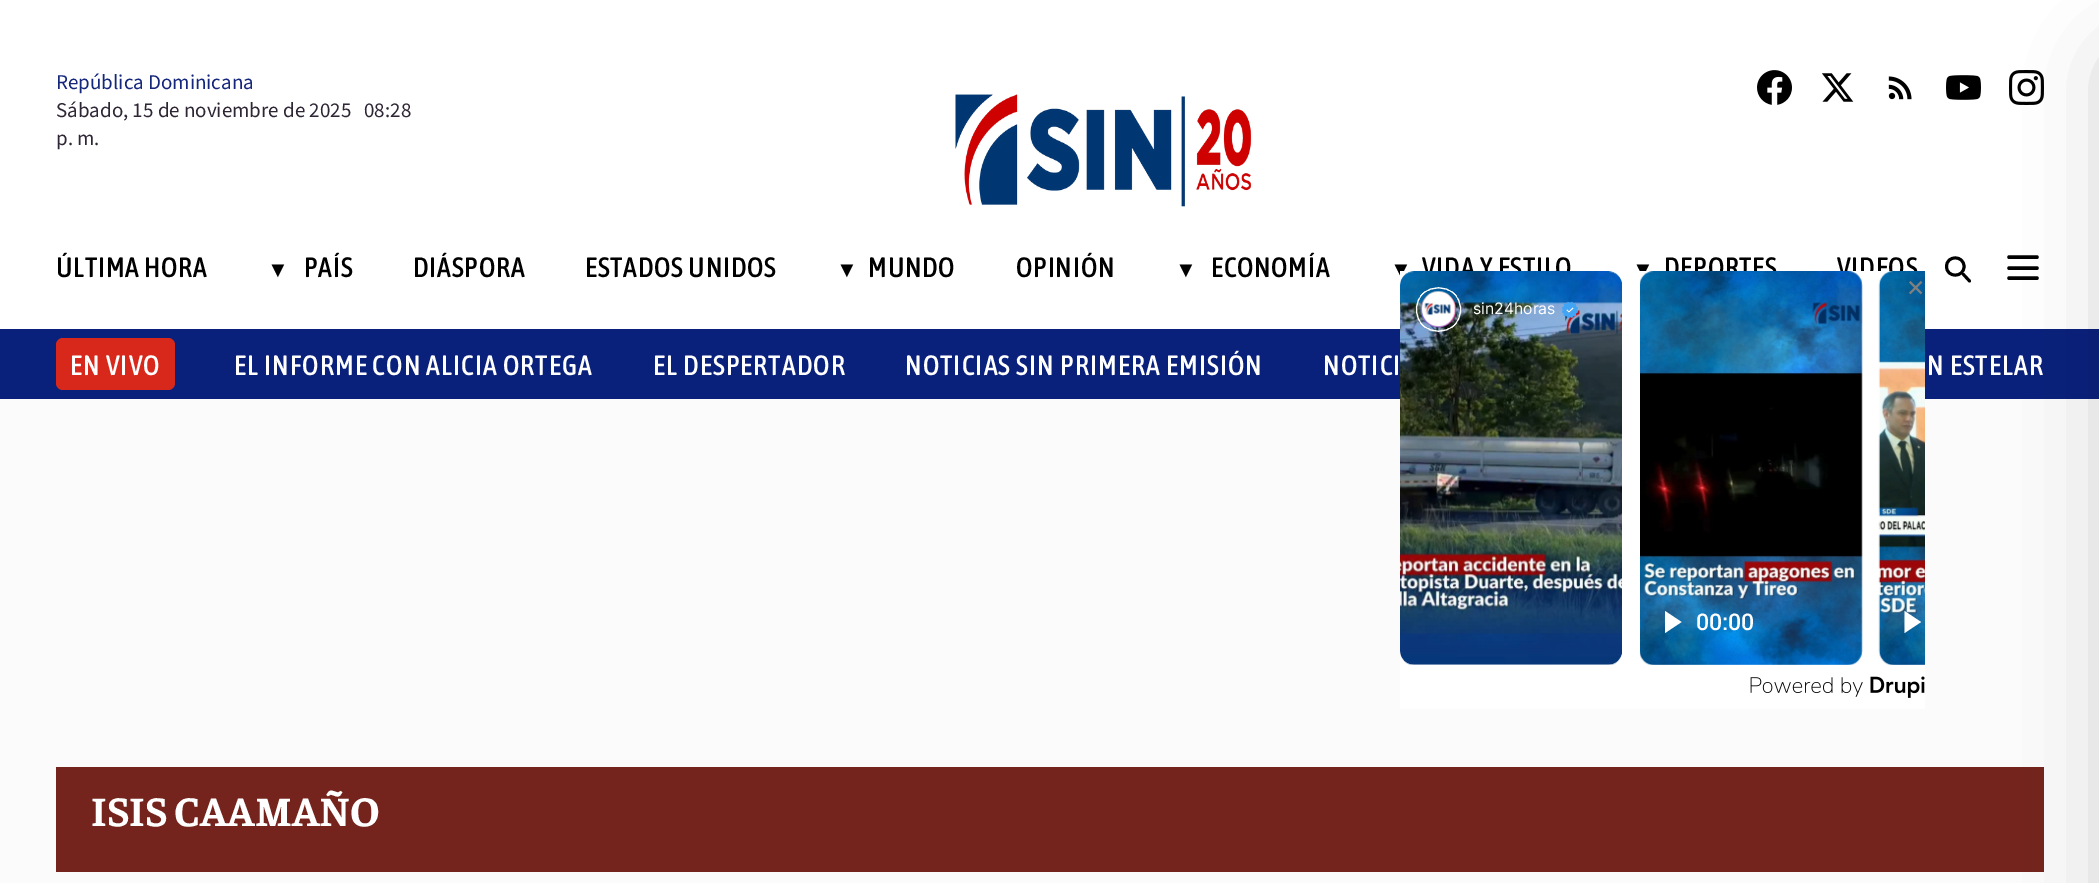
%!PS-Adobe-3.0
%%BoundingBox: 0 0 2099 883
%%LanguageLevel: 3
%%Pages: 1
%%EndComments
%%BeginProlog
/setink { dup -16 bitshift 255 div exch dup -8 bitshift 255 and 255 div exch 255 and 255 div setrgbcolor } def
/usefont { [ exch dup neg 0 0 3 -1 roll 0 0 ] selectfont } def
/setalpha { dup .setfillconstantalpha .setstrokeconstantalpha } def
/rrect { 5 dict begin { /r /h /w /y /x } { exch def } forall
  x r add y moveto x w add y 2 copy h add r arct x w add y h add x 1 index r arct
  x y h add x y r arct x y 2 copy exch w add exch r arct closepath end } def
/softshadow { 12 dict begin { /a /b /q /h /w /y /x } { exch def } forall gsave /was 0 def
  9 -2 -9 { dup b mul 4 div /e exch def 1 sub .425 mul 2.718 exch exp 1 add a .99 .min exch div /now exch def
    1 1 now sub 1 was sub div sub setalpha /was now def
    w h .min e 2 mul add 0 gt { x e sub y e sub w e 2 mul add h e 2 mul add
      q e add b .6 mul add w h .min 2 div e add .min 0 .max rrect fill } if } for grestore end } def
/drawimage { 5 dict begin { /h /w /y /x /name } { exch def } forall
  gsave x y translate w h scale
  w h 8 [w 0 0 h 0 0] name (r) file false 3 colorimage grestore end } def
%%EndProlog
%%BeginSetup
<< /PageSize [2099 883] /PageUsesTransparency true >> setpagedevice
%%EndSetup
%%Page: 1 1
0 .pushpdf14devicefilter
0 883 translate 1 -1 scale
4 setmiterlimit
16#FBFBFB setink
0 0 2099 883 rectfill
16#FFFFFF setink
0 0 2099 329 rectfill
/SourceSans3-Regular 21 usefont
16#15277C setink
56 89 moveto (República Dominicana) show
16#2F2635 setink
[
    [(Sábado, 15 de noviembre de 2025) 56 117]
    [(08:28) 364 117]
    [(p. m.) 56 145]
] { aload pop moveto show } forall
(img1.raw) 955 94 297 113 drawimage
(img2.raw) 1757 70 35 35 drawimage
(img3.raw) 1822 73 32 29 drawimage
(img4.raw) 1888 76 24 24 drawimage
(img5.raw) 1946 75 35 25 drawimage
(img6.raw) 2009 70 35 35 drawimage
16#000000 setink
3.5 setlinewidth
1 setlinecap
1 setlinejoin
2009 257 moveto 2037 257 lineto 2009 268 moveto 2037 268 lineto 2009 278 moveto 2037 278 lineto stroke
16#0A217C setink
0 329 2099 70 rectfill
16#74241D setink
56 767 1988 105 rectfill
16#000000 setink
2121 65 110 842 0 44 0.25 softshadow
/AsapCondensed-Medium 28 usefont
56 277 moveto 0.75 0 (ÚLTIMA HORA) ashow
/LiberationSans-Regular 22 usefont
267 277 moveto 0.75 0 (▼) ashow
/AsapCondensed-Medium 28 usefont
304 277 moveto 0.75 0 (PAÍS) ashow
413 277 moveto 0.75 0 (DIÁSPORA) ashow
585 277 moveto 0.75 0 (ESTADOS UNIDOS) ashow
/LiberationSans-Regular 22 usefont
836 277 moveto 0.75 0 (▼) ashow
/AsapCondensed-Medium 28 usefont
868 277 moveto 0.75 0 (MUNDO) ashow
1016 277 moveto 0.75 0 (OPINIÓN) ashow
/LiberationSans-Regular 22 usefont
1175 277 moveto 0.75 0 (▼) ashow
/AsapCondensed-Medium 28 usefont
1211 277 moveto 0.75 0 (ECONOMÍA) ashow
/LiberationSans-Regular 22 usefont
1390 277 moveto 0.75 0 (▼) ashow
/AsapCondensed-Medium 28 usefont
1422 277 moveto 0.75 0 (VIDA Y ESTILO) ashow
/LiberationSans-Regular 22 usefont
1632 277 moveto 0.75 0 (▼) ashow
/AsapCondensed-Medium 28 usefont
1664 277 moveto 0.75 0 (DEPORTES) ashow
1837 277 moveto 0.75 0 (VIDEOS) ashow
2.9 setlinewidth
1969.5 281 moveto 1963.5 274.5 lineto 1964 266.5 moveto 1964 278 1946.5 278 1946.5 266.5 curveto 1946.5 255 1964 255 1964 266.5 curveto closepath stroke
16#D7281B setink
56 338 119 52 7 rrect fill
16#FFFFFF setink
70 375 moveto 1.1 0 (EN VIVO) ashow
234 375 moveto 1.1 0 (EL INFORME CON ALICIA ORTEGA) ashow
653 375 moveto 1.1 0 (EL DESPERTADOR) ashow
905 375 moveto 1.1 0 (NOTICIAS SIN PRIMERA EMISIÓN) ashow
1323 375 moveto 1.1 0 (NOTICI) ashow
1927 375 moveto 1.1 0 (N ESTELAR) ashow
1400 271 525 438 rectfill
(img7.raw) 1750 676 175 22 drawimage
(img12.raw) 1878 271 47 394 drawimage
/DejaVuSans-Regular 23 usefont
16#808080 setink
1906 296 moveto (✕) show
(img8.raw) 1400 271 222 394 drawimage
16#FFFFFF setink
1.1 setlinewidth
0 setlinejoin
1416.5 309.5 moveto 1416.5 280.5 1460.5 280.5 1460.5 309.5 curveto 1460.5 338.5 1416.5 338.5 1416.5 309.5 curveto closepath 1416.5 309.5 moveto 1416.5 280.5 1460.5 280.5 1460.5 309.5 curveto 1460.5 338.5 1416.5 338.5 1416.5 309.5 curveto closepath stroke
(img9.raw) 1420 291 37 37 drawimage
(img10.raw) 1421 291 35 36 drawimage
/Inter-Regular 15.75 usefont
1473 314 moveto (sin24horas) show
(img11.raw) 1561 301 18 18 drawimage
1904.5 611 moveto 1904.5 633 lineto 1921 622 lineto closepath fill
(img13.raw) 1640 271 223 394 drawimage
1665 611 moveto 1665 633 lineto 1681.5 622 lineto closepath fill
/Roboto-Medium 23 usefont
1696 630 moveto (00:00) show
/Faustina-Bold 42 usefont
91 826 moveto (ISIS CAAMAÑO) show
.poppdf14devicefilter showpage
%%EOF
